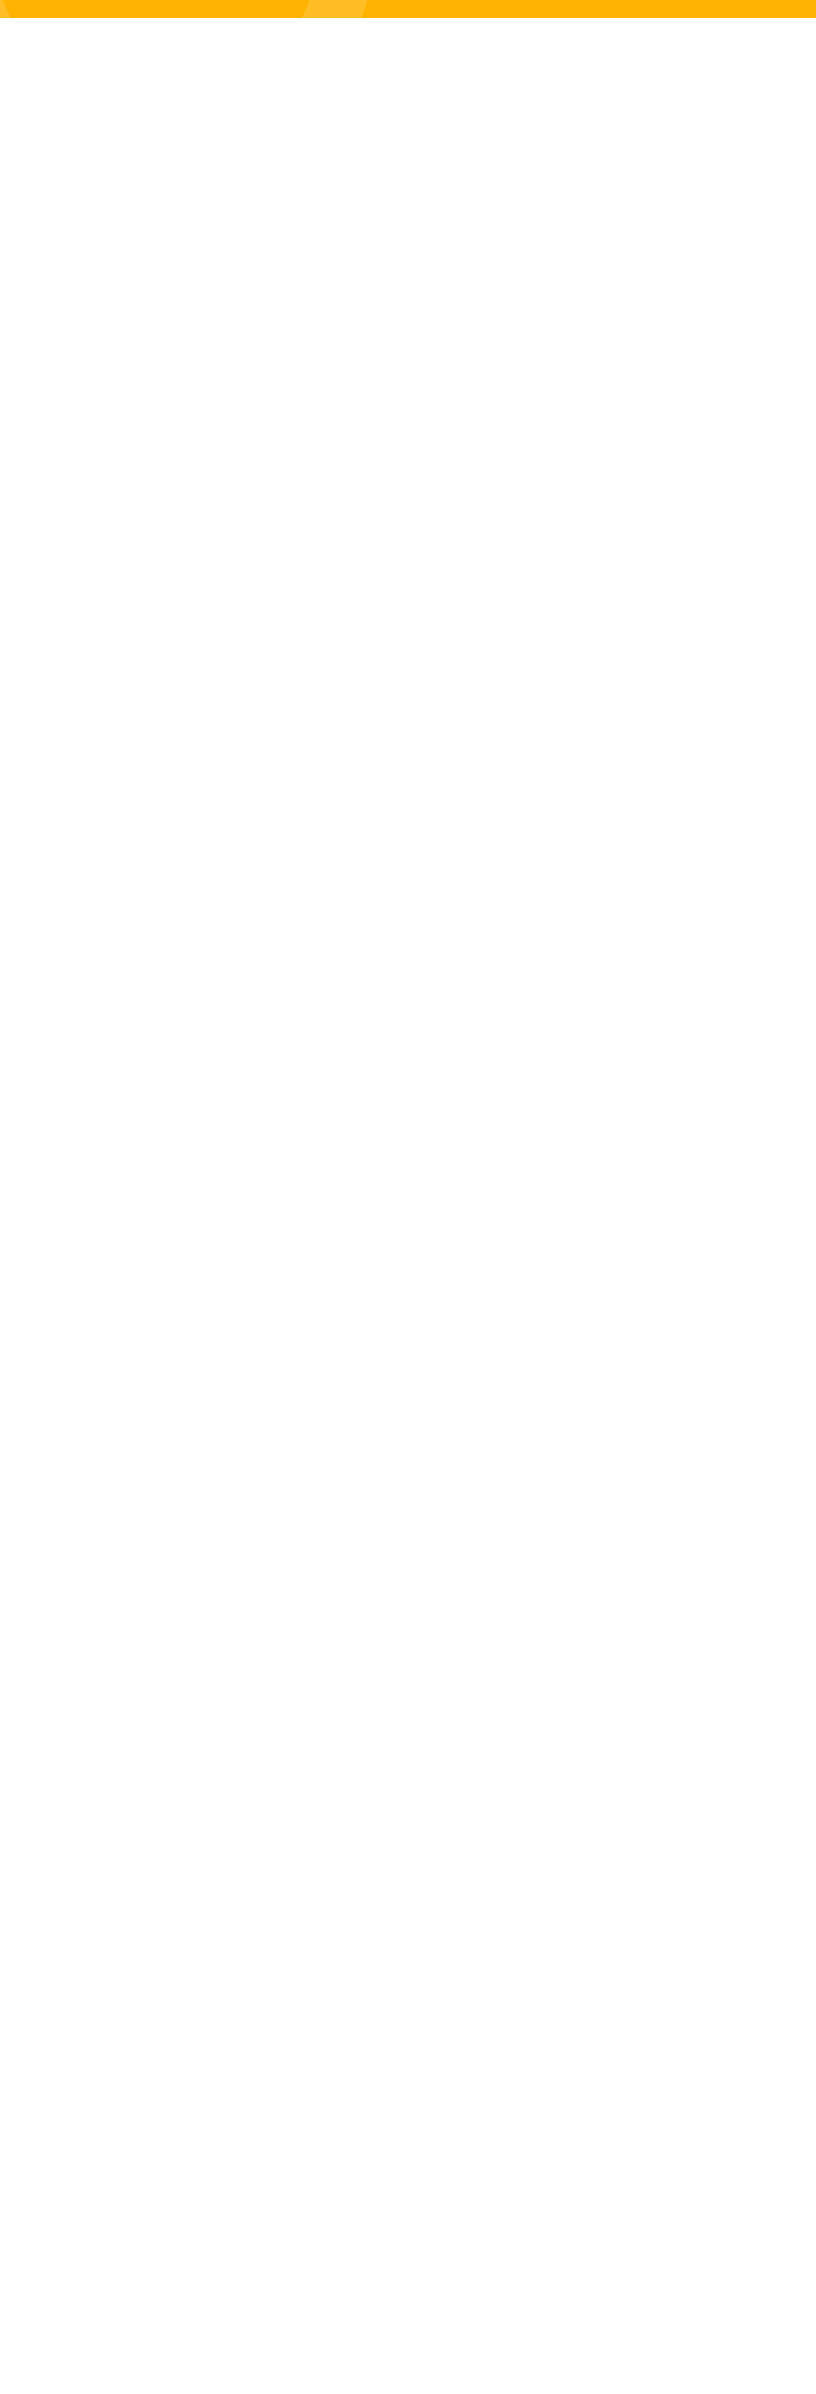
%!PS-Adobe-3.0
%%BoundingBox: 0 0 816 2394
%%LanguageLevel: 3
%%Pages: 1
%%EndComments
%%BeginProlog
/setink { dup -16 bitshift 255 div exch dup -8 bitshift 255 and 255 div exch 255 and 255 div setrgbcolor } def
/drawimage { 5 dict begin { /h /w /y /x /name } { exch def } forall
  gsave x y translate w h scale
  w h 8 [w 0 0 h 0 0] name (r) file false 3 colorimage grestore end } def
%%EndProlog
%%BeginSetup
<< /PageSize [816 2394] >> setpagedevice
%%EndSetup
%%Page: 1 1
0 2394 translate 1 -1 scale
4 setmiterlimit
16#FFFFFF setink
0 0 816 2394 rectfill
16#FFB300 setink
0 0 816 18 rectfill
(img1.raw) 0 0 367 18 drawimage
showpage
%%EOF
